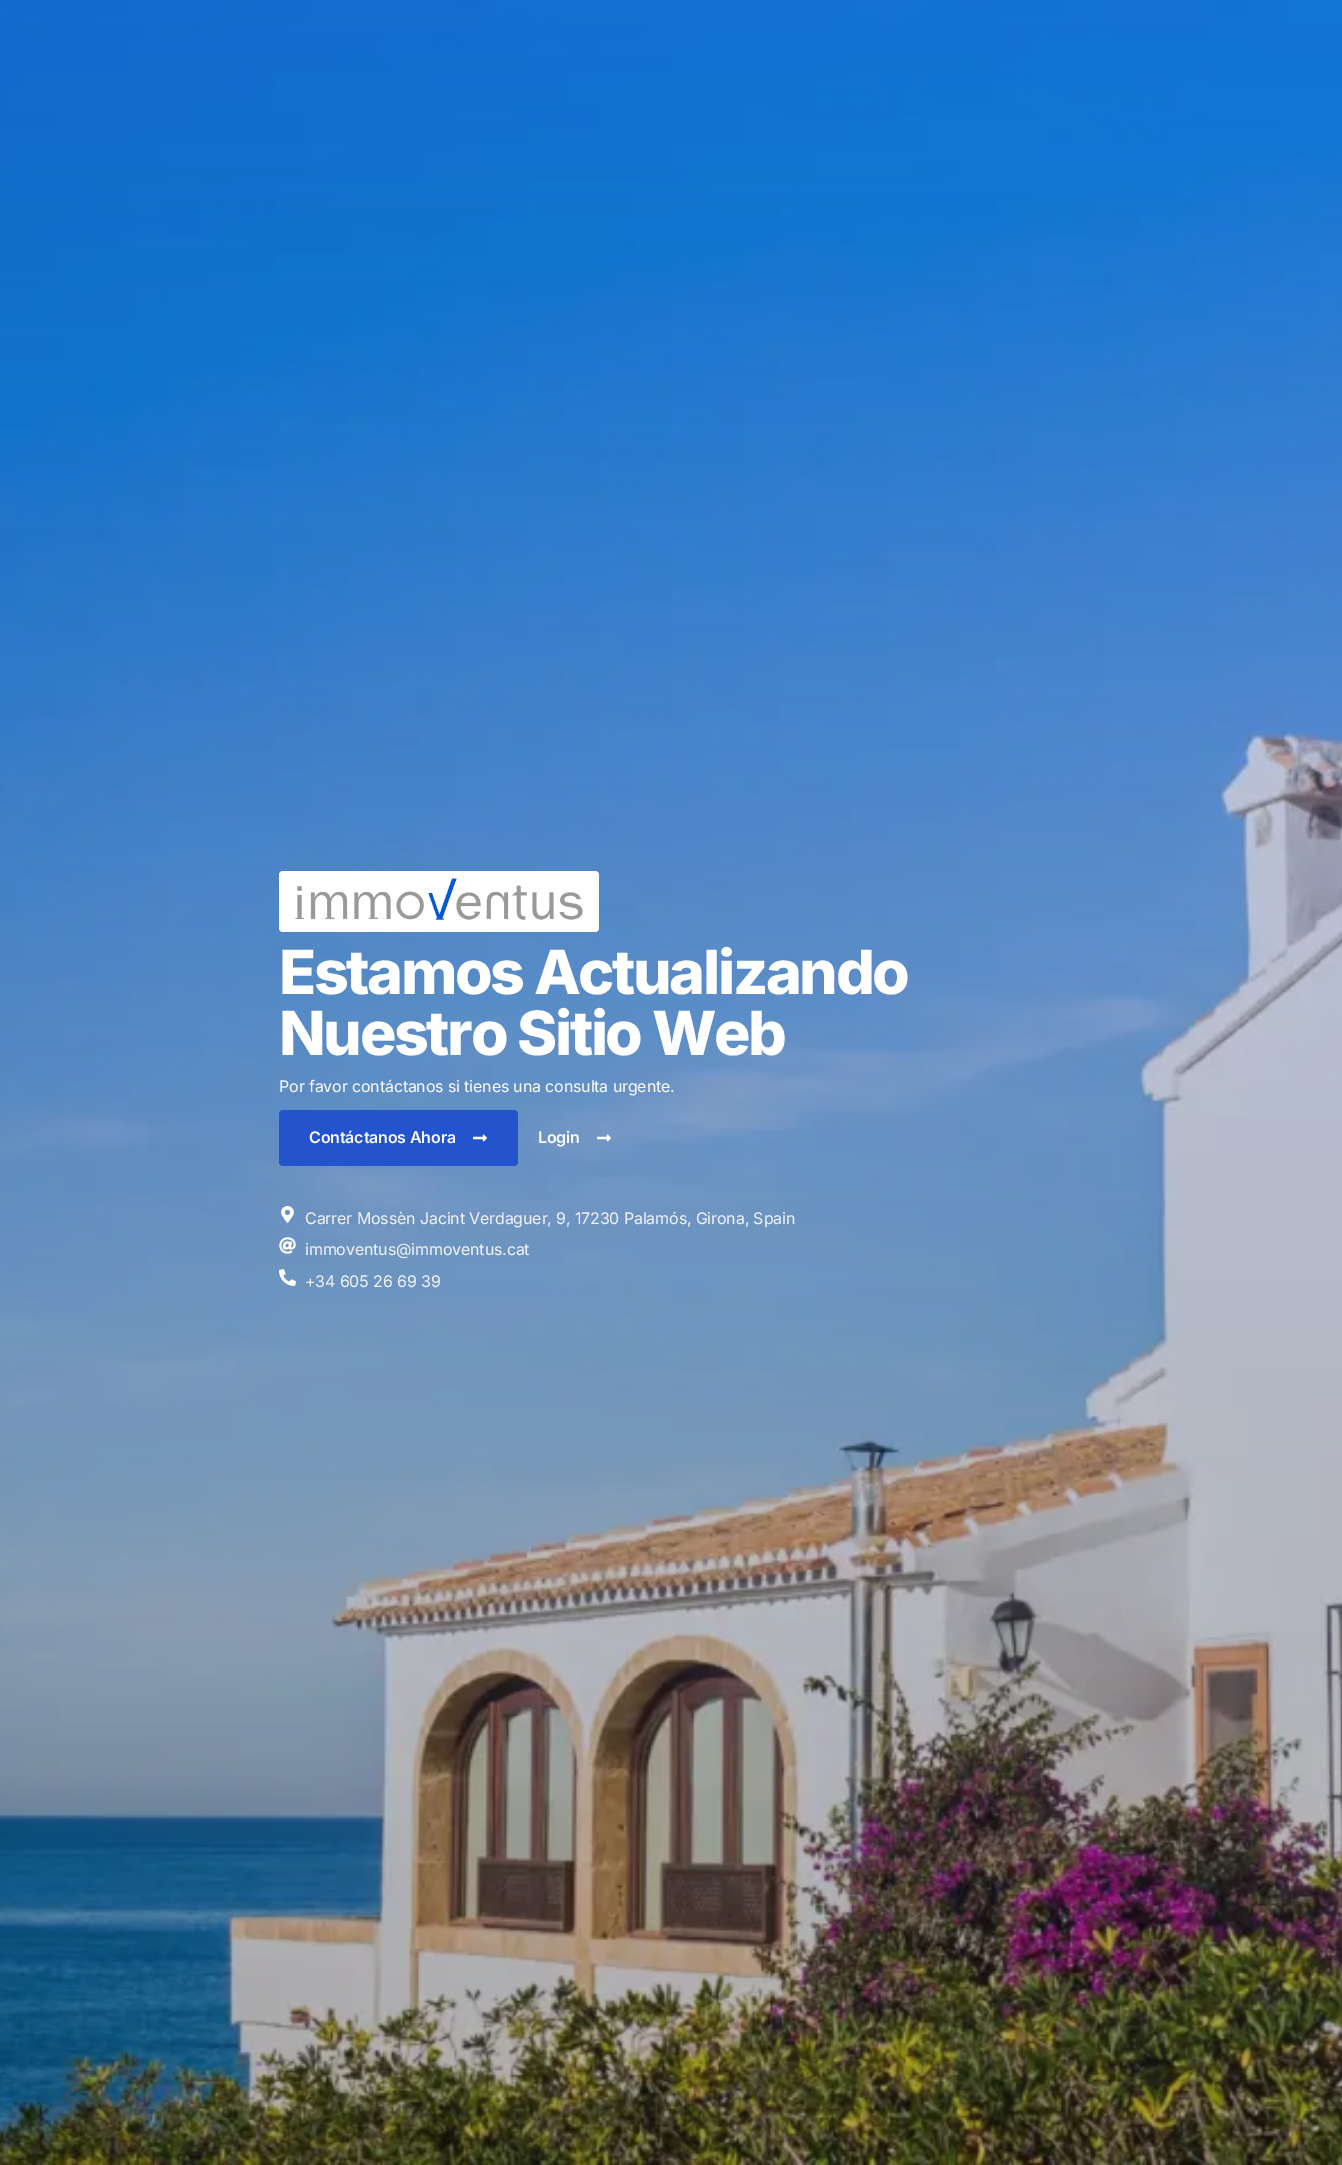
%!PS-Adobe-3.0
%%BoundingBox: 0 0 1342 2165
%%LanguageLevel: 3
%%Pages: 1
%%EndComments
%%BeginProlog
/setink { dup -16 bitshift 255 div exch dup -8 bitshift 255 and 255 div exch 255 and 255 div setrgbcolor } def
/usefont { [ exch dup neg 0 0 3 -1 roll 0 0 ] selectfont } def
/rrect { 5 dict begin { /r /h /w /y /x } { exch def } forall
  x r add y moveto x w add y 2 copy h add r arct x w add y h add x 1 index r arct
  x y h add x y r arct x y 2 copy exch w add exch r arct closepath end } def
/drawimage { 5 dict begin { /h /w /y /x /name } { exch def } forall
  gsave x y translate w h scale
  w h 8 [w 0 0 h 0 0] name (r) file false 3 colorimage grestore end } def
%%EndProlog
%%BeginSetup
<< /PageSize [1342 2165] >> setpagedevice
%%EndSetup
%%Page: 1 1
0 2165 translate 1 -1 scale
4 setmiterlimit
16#FFFFFF setink
0 0 1342 2165 rectfill
(img1.raw) 0 0 1342 2165 drawimage
279 871 320 61 4 rrect fill
(img2.raw) 295 878 288 42 drawimage
/Inter-ExtraBold 61 usefont
279 994 moveto -2.4 0 (Estamos Actualizando) ashow
279 1055 moveto -2.4 0 (Nuestro Sitio Web) ashow
/Inter-Regular 16 usefont
279 1092 moveto -0.15 0 (Por favor contáctanos si tienes una consulta urgente.) ashow
16#2454CD setink
279 1110 239 56 4 rrect fill
/Inter-SemiBold 16 usefont
16#FFFFFF setink
309 1143 moveto -0.15 0 (Contáctanos Ahora) ashow
(img3.raw) 473 1134 14 8 drawimage
538 1143 moveto -0.15 0 (Login) ashow
(img4.raw) 597 1134 14 8 drawimage
(img5.raw) 281 1206 13 17 drawimage
/Inter-Regular 16 usefont
16#F5F5F5 setink
305 1224 moveto -0.15 0 (Carrer Mossèn Jacint Verdaguer, 9, 17230 Palamós, Girona, Spain) ashow
(img6.raw) 279 1237 17 17 drawimage
305 1255 moveto -0.15 0 (immoventus@immoventus.cat) ashow
(img7.raw) 279 1269 17 17 drawimage
305 1287 moveto -0.15 0 (+34 605 26 69 39) ashow
showpage
%%EOF
